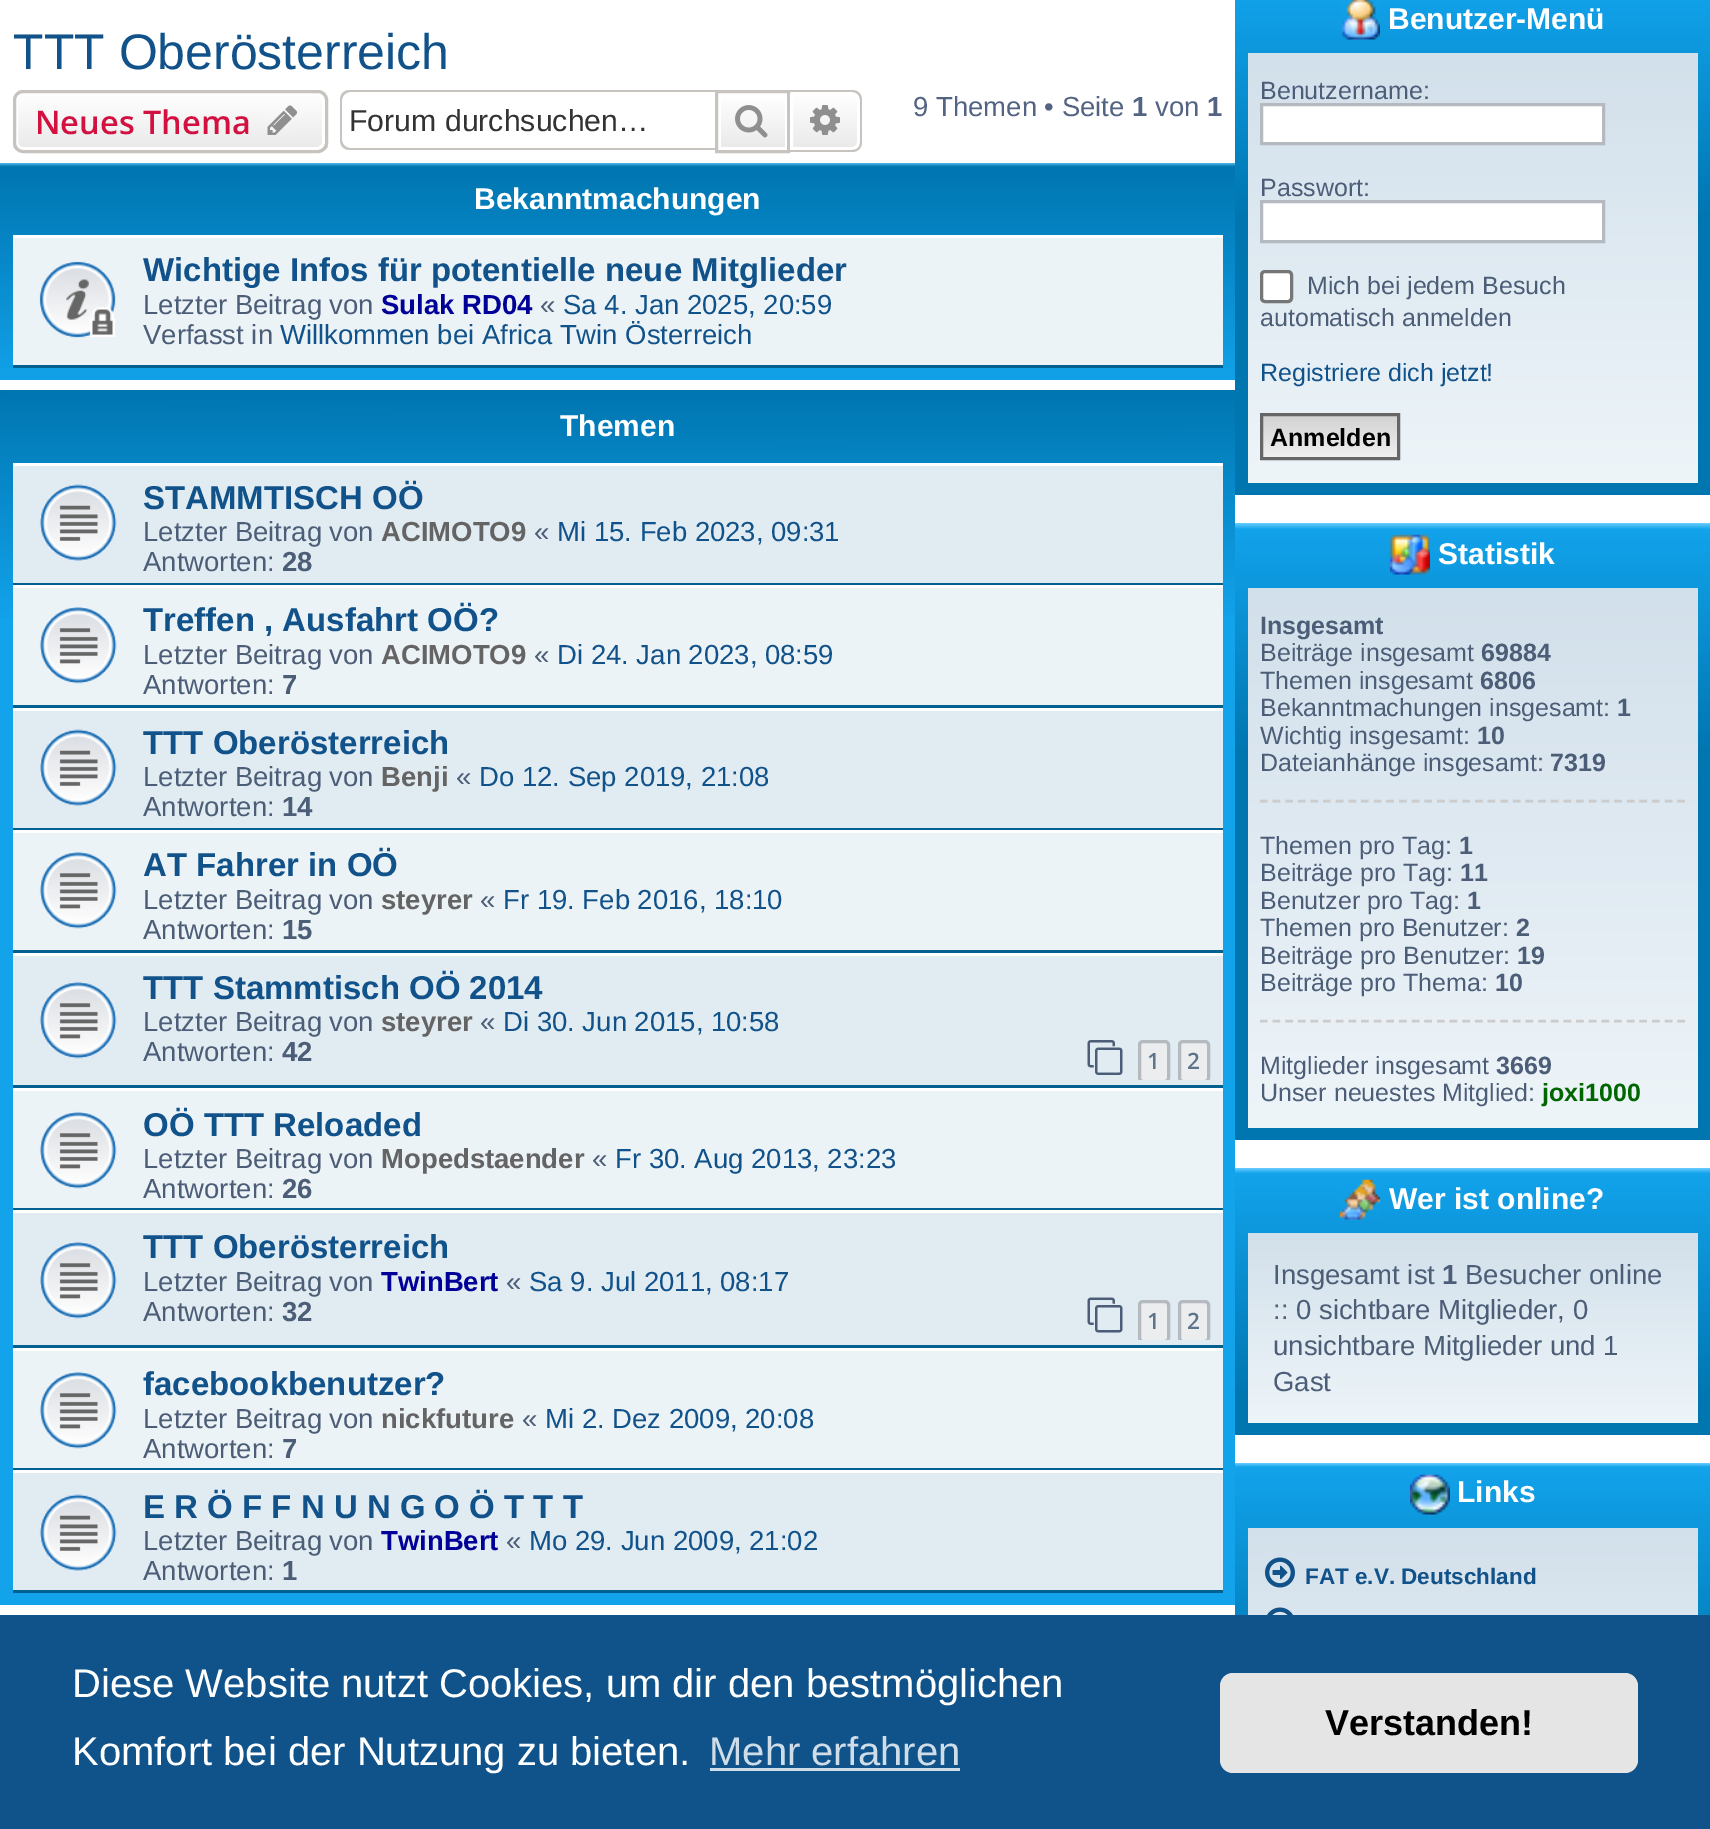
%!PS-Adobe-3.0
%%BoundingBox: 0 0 1710 1829
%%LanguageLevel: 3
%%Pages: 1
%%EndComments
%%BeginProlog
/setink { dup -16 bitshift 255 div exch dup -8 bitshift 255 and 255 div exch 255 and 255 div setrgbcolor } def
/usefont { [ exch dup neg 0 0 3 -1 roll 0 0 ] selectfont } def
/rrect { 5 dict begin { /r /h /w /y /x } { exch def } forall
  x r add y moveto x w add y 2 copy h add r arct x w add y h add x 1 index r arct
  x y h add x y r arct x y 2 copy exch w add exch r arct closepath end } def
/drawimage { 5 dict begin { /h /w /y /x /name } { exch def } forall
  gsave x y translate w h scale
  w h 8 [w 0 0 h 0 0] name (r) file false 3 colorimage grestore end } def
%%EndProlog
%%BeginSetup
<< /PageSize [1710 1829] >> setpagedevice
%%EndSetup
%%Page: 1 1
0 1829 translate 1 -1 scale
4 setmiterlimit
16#FFFFFF setink
0 0 1710 1829 rectfill
/LiberationSans-Regular 50 usefont
16#105289 setink
13 69 moveto (TTT Oberösterreich) show
/LiberationSans-Regular 27.5 usefont
16#536482 setink
913 116 moveto (9 Themen • Seite) show
/LiberationSans-Bold 27.5 usefont
1132 116 moveto (1) show
/LiberationSans-Regular 27.5 usefont
1155 116 moveto (von) show
/LiberationSans-Bold 27.5 usefont
1207 116 moveto (1) show
gsave
13 90 315 63 10 rrect clip newpath
gsave 13 93 moveto 328 93 lineto 328 150 lineto 13 150 lineto closepath clip newpath
<< /ShadingType 2 /ColorSpace /DeviceRGB /Coords [170 92 170 150] /Extend [true true] /Function << /FunctionType 2 /Domain [0 1] /C0 [1 1 1] /C1 [0.914 0.914 0.914] /N 1 >> >> shfill grestore
grestore
16#FFFFFF setink
3 setlinewidth
16.5 94.5 307 54 6.5 rrect stroke
16#C7C3BF setink
14.5 91.5 312 60 8.5 rrect stroke
/OpenSans-SemiBold 32.5 usefont
16#D31141 setink
35 134 moveto (Neues Thema) show
(img1.raw) 267 105 31 30 drawimage
16#C7C3BF setink
350 90 moveto 715 90 lineto 715 150 lineto 350 150 lineto 344 150 340 146 340 140 curveto 340 100 lineto 340 94 344 90 350 90 curveto closepath 350 92 moveto 715 92 lineto 715 148 lineto 350 148 lineto 346 148 342 144 342 140 curveto 342 100 lineto 342 96 346 92 350 92 curveto closepath eofill
/LiberationSans-Regular 30.25 usefont
16#333333 setink
349 131 moveto (Forum durchsuchen…) show
gsave 721 99 moveto 785 99 lineto 785 147 lineto 721 147 lineto closepath clip newpath
<< /ShadingType 2 /ColorSpace /DeviceRGB /Coords [753 93 753 150] /Extend [true true] /Function << /FunctionType 2 /Domain [0 1] /C0 [1 1 1] /C1 [0.914 0.914 0.914] /N 1 >> >> shfill grestore
16#C7C3BF setink
716.5 91.5 72 60 rectstroke
(img2.raw) 735 105 33 33 drawimage
gsave 791.5 94.5 moveto 852 94.5 lineto 855.5 94.5 858.5 97.5 858.5 101 curveto 858.5 142 lineto 858.5 145.5 855.5 148.5 852 148.5 curveto 791.5 148.5 lineto closepath clip newpath
<< /ShadingType 2 /ColorSpace /DeviceRGB /Coords [825 93 825 150] /Extend [true true] /Function << /FunctionType 2 /Domain [0 1] /C0 [1 1 1] /C1 [0.914 0.914 0.914] /N 1 >> >> shfill grestore
16#FFFFFF setink
791.5 94.5 moveto 852 94.5 lineto 855.5 94.5 858.5 97.5 858.5 101 curveto 858.5 142 lineto 858.5 145.5 855.5 148.5 852 148.5 curveto 791.5 148.5 lineto closepath stroke
16#C7C3BF setink
790 90 moveto 852 90 lineto 858 90 862 94 862 100 curveto 862 142 lineto 862 148 858 152 852 152 curveto 790 152 lineto closepath 790 92 moveto 852 92 lineto 857 92 860 96 860 100 curveto 860 142 lineto 860 147 857 150 852 150 curveto 790 150 lineto closepath eofill
(img3.raw) 810 105 30 30 drawimage
gsave 0 163 moveto 1235 163 lineto 1235 380 lineto 0 380 lineto closepath clip newpath
<< /ShadingType 2 /ColorSpace /DeviceRGB /Coords [618 162 618 392] /Extend [true true] /Function << /FunctionType 3 /Domain [0 1] /Functions [<< /FunctionType 2 /Domain [0 1] /C0 [0.416 0.808 1] /C1 [0 0.463 0.694] /N 1 >> << /FunctionType 2 /Domain [0 1] /C0 [0 0.463 0.694] /C1 [0.071 0.639 0.922] /N 1 >>] /Bounds [0.02] /Encode [0 1 0 1] >> >> shfill grestore
/LiberationSans-Bold 30 usefont
16#FFFFFF setink
474 209 moveto (Bekanntmachungen) show
[
    [13 238 1210 127 16#ECF3F7]
    [13 235 1210 3 16#FFFFFF]
    [13 365 1210 3 16#00608F]
] { aload pop setink rectfill } forall
(img4.raw) 39 261 77 77 drawimage
/LiberationSans-Bold 33 usefont
16#105289 setink
143 281 moveto (Wichtige Infos für potentielle neue Mitglieder) show
/LiberationSans-Regular 27.5 usefont
16#4C5D77 setink
143 314 moveto (Letzter Beitrag von) show
/LiberationSans-Bold 27.5 usefont
16#000099 setink
381 314 moveto (Sulak RD04) show
/LiberationSans-Regular 27.5 usefont
16#4C5D77 setink
540 314 moveto («) show
16#105289 setink
563 314 moveto (Sa 4. Jan 2025, 20:59) show
16#4C5D77 setink
143 344 moveto (Verfasst in) show
16#105289 setink
280 344 moveto (Willkommen bei Africa Twin Österreich) show
gsave 0 390 moveto 1235 390 lineto 1235 1605 lineto 0 1605 lineto closepath clip newpath
<< /ShadingType 2 /ColorSpace /DeviceRGB /Coords [617 390 618 1605] /Extend [true true] /Function << /FunctionType 3 /Domain [0 1] /Functions [<< /FunctionType 2 /Domain [0 1] /C0 [0 0.463 0.694] /C1 [0.071 0.639 0.922] /N 1 >> << /FunctionType 2 /Domain [0 1] /C0 [0.071 0.639 0.922] /C1 [0.071 0.639 0.922] /N 1 >>] /Bounds [0.19] /Encode [0 1 0 1] >> >> shfill grestore
/LiberationSans-Bold 30 usefont
16#FFFFFF setink
560 436 moveto (Themen) show
[
    [13 466 1210 117 16#E1EBF2]
    [13 463 1210 3 16#FFFFFF]
    [13 583 1210 2 16#00608F]
] { aload pop setink rectfill } forall
(img5.raw) 39 484 78 77 drawimage
/LiberationSans-Bold 33 usefont
16#105289 setink
143 509 moveto (STAMMTISCH OÖ) show
/LiberationSans-Regular 27.5 usefont
16#4C5D77 setink
143 541 moveto (Letzter Beitrag von) show
/LiberationSans-Bold 27.5 usefont
16#646464 setink
381 541 moveto (ACIMOTO9) show
/LiberationSans-Regular 27.5 usefont
16#4C5D77 setink
534 541 moveto («) show
16#105289 setink
557 541 moveto (Mi 15. Feb 2023, 09:31) show
16#4C5D77 setink
143 571 moveto (Antworten:) show
/LiberationSans-Bold 27.5 usefont
282 571 moveto (28) show
[
    [13 588 1210 117 16#ECF3F7]
    [13 585 1210 3 16#FFFFFF]
    [13 705 1210 3 16#00608F]
] { aload pop setink rectfill } forall
(img6.raw) 39 606 78 78 drawimage
/LiberationSans-Bold 33 usefont
16#105289 setink
143 631 moveto (Treffen , Ausfahrt OÖ?) show
/LiberationSans-Regular 27.5 usefont
16#4C5D77 setink
143 664 moveto (Letzter Beitrag von) show
/LiberationSans-Bold 27.5 usefont
16#646464 setink
381 664 moveto (ACIMOTO9) show
/LiberationSans-Regular 27.5 usefont
16#4C5D77 setink
534 664 moveto («) show
16#105289 setink
557 664 moveto (Di 24. Jan 2023, 08:59) show
16#4C5D77 setink
143 694 moveto (Antworten:) show
/LiberationSans-Bold 27.5 usefont
282 694 moveto (7) show
[
    [13 711 1210 117 16#E1EBF2]
    [13 708 1210 3 16#FFFFFF]
    [13 828 1210 2 16#00608F]
] { aload pop setink rectfill } forall
(img5.raw) 39 729 78 77 drawimage
/LiberationSans-Bold 33 usefont
16#105289 setink
143 754 moveto (TTT Oberösterreich) show
/LiberationSans-Regular 27.5 usefont
16#4C5D77 setink
143 786 moveto (Letzter Beitrag von) show
/LiberationSans-Bold 27.5 usefont
16#646464 setink
381 786 moveto (Benji) show
/LiberationSans-Regular 27.5 usefont
16#4C5D77 setink
456 786 moveto («) show
16#105289 setink
479 786 moveto (Do 12. Sep 2019, 21:08) show
16#4C5D77 setink
143 816 moveto (Antworten:) show
/LiberationSans-Bold 27.5 usefont
282 816 moveto (14) show
[
    [13 833 1210 117 16#ECF3F7]
    [13 830 1210 3 16#FFFFFF]
    [13 950 1210 3 16#00608F]
] { aload pop setink rectfill } forall
(img7.raw) 39 851 78 78 drawimage
/LiberationSans-Bold 33 usefont
16#105289 setink
143 876 moveto (AT Fahrer in OÖ) show
/LiberationSans-Regular 27.5 usefont
16#4C5D77 setink
143 909 moveto (Letzter Beitrag von) show
/LiberationSans-Bold 27.5 usefont
16#646464 setink
381 909 moveto (steyrer) show
/LiberationSans-Regular 27.5 usefont
16#4C5D77 setink
480 909 moveto («) show
16#105289 setink
503 909 moveto (Fr 19. Feb 2016, 18:10) show
16#4C5D77 setink
143 939 moveto (Antworten:) show
/LiberationSans-Bold 27.5 usefont
282 939 moveto (15) show
[
    [13 956 1210 129 16#E1EBF2]
    [13 953 1210 3 16#FFFFFF]
    [13 1085 1210 3 16#00608F]
] { aload pop setink rectfill } forall
(img8.raw) 39 981 78 78 drawimage
/LiberationSans-Bold 33 usefont
16#105289 setink
143 999 moveto (TTT Stammtisch OÖ 2014) show
/LiberationSans-Regular 27.5 usefont
16#4C5D77 setink
143 1031 moveto (Letzter Beitrag von) show
/LiberationSans-Bold 27.5 usefont
16#646464 setink
381 1031 moveto (steyrer) show
/LiberationSans-Regular 27.5 usefont
16#4C5D77 setink
480 1031 moveto («) show
16#105289 setink
503 1031 moveto (Di 30. Jun 2015, 10:58) show
16#4C5D77 setink
143 1061 moveto (Antworten:) show
/LiberationSans-Bold 27.5 usefont
282 1061 moveto (42) show
(img9.raw) 1087 1040 36 35 drawimage
gsave
13 960 1210 120 rectclip
16#ECEDEE setink
1139.5 1041.5 29 40 3.5 rrect gsave fill grestore
16#B4BAC0 setink
stroke
grestore
/OpenSans-SemiBold 22.5 usefont
16#5C758C setink
1147 1069 moveto (1) show
gsave
13 960 1210 120 rectclip
16#ECEDEE setink
1179.5 1041.5 29 40 3.5 rrect gsave fill grestore
16#B4BAC0 setink
stroke
grestore
1187 1069 moveto (2) show
[
    [13 1091 1210 117 16#ECF3F7]
    [13 1088 1210 3 16#FFFFFF]
    [13 1208 1210 2 16#00608F]
] { aload pop setink rectfill } forall
(img6.raw) 39 1111 78 78 drawimage
/LiberationSans-Bold 33 usefont
16#105289 setink
143 1136 moveto (OÖ TTT Reloaded) show
/LiberationSans-Regular 27.5 usefont
16#4C5D77 setink
143 1168 moveto (Letzter Beitrag von) show
/LiberationSans-Bold 27.5 usefont
16#646464 setink
381 1168 moveto (Mopedstaender) show
/LiberationSans-Regular 27.5 usefont
16#4C5D77 setink
592 1168 moveto («) show
16#105289 setink
615 1168 moveto (Fr 30. Aug 2013, 23:23) show
16#4C5D77 setink
143 1198 moveto (Antworten:) show
/LiberationSans-Bold 27.5 usefont
282 1198 moveto (26) show
[
    [13 1213 1210 132 16#E1EBF2]
    [13 1210 1210 3 16#FFFFFF]
    [13 1345 1210 3 16#00608F]
] { aload pop setink rectfill } forall
(img10.raw) 39 1241 78 78 drawimage
/LiberationSans-Bold 33 usefont
16#105289 setink
143 1258 moveto (TTT Oberösterreich) show
/LiberationSans-Regular 27.5 usefont
16#4C5D77 setink
143 1291 moveto (Letzter Beitrag von) show
/LiberationSans-Bold 27.5 usefont
16#000099 setink
381 1291 moveto (TwinBert) show
/LiberationSans-Regular 27.5 usefont
16#4C5D77 setink
506 1291 moveto («) show
16#105289 setink
529 1291 moveto (Sa 9. Jul 2011, 08:17) show
16#4C5D77 setink
143 1321 moveto (Antworten:) show
/LiberationSans-Bold 27.5 usefont
282 1321 moveto (32) show
(img11.raw) 1087 1297 36 36 drawimage
gsave
13 1218 1210 122 rectclip
16#ECEDEE setink
1139.5 1301.5 29 40 3.5 rrect gsave fill grestore
16#B4BAC0 setink
stroke
grestore
/OpenSans-SemiBold 22.5 usefont
16#5C758C setink
1147 1329 moveto (1) show
gsave
13 1218 1210 122 rectclip
16#ECEDEE setink
1179.5 1301.5 29 40 3.5 rrect gsave fill grestore
16#B4BAC0 setink
stroke
grestore
1187 1329 moveto (2) show
[
    [13 1351 1210 117 16#ECF3F7]
    [13 1348 1210 3 16#FFFFFF]
    [13 1468 1210 2 16#00608F]
] { aload pop setink rectfill } forall
(img6.raw) 39 1371 78 78 drawimage
/LiberationSans-Bold 33 usefont
16#105289 setink
143 1395 moveto (facebookbenutzer?) show
/LiberationSans-Regular 27.5 usefont
16#4C5D77 setink
143 1428 moveto (Letzter Beitrag von) show
/LiberationSans-Bold 27.5 usefont
16#646464 setink
381 1428 moveto (nickfuture) show
/LiberationSans-Regular 27.5 usefont
16#4C5D77 setink
522 1428 moveto («) show
16#105289 setink
545 1428 moveto (Mi 2. Dez 2009, 20:08) show
16#4C5D77 setink
143 1458 moveto (Antworten:) show
/LiberationSans-Bold 27.5 usefont
282 1458 moveto (7) show
[
    [13 1473 1210 117 16#E1EBF2]
    [13 1470 1210 3 16#FFFFFF]
    [13 1590 1210 3 16#00608F]
] { aload pop setink rectfill } forall
(img5.raw) 39 1494 78 77 drawimage
/LiberationSans-Bold 33 usefont
16#105289 setink
143 1518 moveto (E R Ö F F N U N G O Ö T T T) show
/LiberationSans-Regular 27.5 usefont
16#4C5D77 setink
143 1550 moveto (Letzter Beitrag von) show
/LiberationSans-Bold 27.5 usefont
16#000099 setink
381 1550 moveto (TwinBert) show
/LiberationSans-Regular 27.5 usefont
16#4C5D77 setink
506 1550 moveto («) show
16#105289 setink
529 1550 moveto (Mo 29. Jun 2009, 21:02) show
16#4C5D77 setink
143 1580 moveto (Antworten:) show
/LiberationSans-Bold 27.5 usefont
282 1580 moveto (1) show
gsave 1235 0 moveto 1710 0 lineto 1710 495 lineto 1235 495 lineto closepath clip newpath
<< /ShadingType 2 /ColorSpace /DeviceRGB /Coords [1473 -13 1473 495] /Extend [true true] /Function << /FunctionType 3 /Domain [0 1] /Functions [<< /FunctionType 2 /Domain [0 1] /C0 [0.416 0.808 1] /C1 [0.071 0.639 0.922] /N 1 >> << /FunctionType 2 /Domain [0 1] /C0 [0.071 0.639 0.922] /C1 [0 0.463 0.694] /N 1 >> << /FunctionType 2 /Domain [0 1] /C0 [0 0.463 0.694] /C1 [0 0.463 0.694] /N 1 >>] /Bounds [0.01 0.45] /Encode [0 1 0 1 0 1] >> >> shfill grestore
(img12.raw) 1341 0 39 40 drawimage
/LiberationSans-Bold 30 usefont
16#FFFFFF setink
1388 29 moveto (Benutzer-Menü) show
gsave 1248 53 moveto 1698 53 lineto 1698 483 lineto 1248 483 lineto closepath clip newpath
<< /ShadingType 2 /ColorSpace /DeviceRGB /Coords [1473 52 1473 483] /Extend [true true] /Function << /FunctionType 2 /Domain [0 1] /C0 [0.824 0.878 0.922] /C1 [0.933 0.961 0.976] /N 1 >> >> shfill grestore
/LiberationSans-Regular 25 usefont
16#4C5D77 setink
1260 99 moveto (Benutzername:) show
16#FFFFFF setink
1261.5 104.5 moveto 1603.5 104.5 lineto 1603.5 143.5 lineto 1261.5 143.5 lineto closepath gsave fill grestore
16#B4BAC0 setink
stroke
16#4C5D77 setink
1260 196 moveto (Passwort:) show
16#FFFFFF setink
1261.5 201.5 moveto 1603.5 201.5 lineto 1603.5 241.5 lineto 1261.5 241.5 lineto closepath gsave fill grestore
16#B4BAC0 setink
stroke
16#FFFFFF setink
1261.5 271.5 30 30 3.5 rrect gsave fill grestore
16#767676 setink
stroke
16#4C5D77 setink
1307 294 moveto (Mich bei jedem Besuch) show
1260 326 moveto (automatisch anmelden) show
16#105289 setink
1260 381 moveto (Registriere dich jetzt!) show
gsave 1263 416 moveto 1397 416 lineto 1397 457 lineto 1263 457 lineto closepath clip newpath
<< /ShadingType 2 /ColorSpace /DeviceRGB /Coords [1330 415 1330 458] /Extend [true true] /Function << /FunctionType 2 /Domain [0 1] /C0 [0.824 0.824 0.824] /C1 [0.937 0.937 0.937] /N 1 >> >> shfill grestore
16#666666 setink
1261.5 414.5 137 44 rectstroke
/LiberationSans-Bold 25 usefont
16#000000 setink
1270 446 moveto (Anmelden) show
gsave 1235 523 moveto 1710 523 lineto 1710 1140 lineto 1235 1140 lineto closepath clip newpath
<< /ShadingType 2 /ColorSpace /DeviceRGB /Coords [1473 523 1473 1140] /Extend [true true] /Function << /FunctionType 3 /Domain [0 1] /Functions [<< /FunctionType 2 /Domain [0 1] /C0 [0.416 0.808 1] /C1 [0.071 0.639 0.922] /N 1 >> << /FunctionType 2 /Domain [0 1] /C0 [0.071 0.639 0.922] /C1 [0 0.463 0.694] /N 1 >> << /FunctionType 2 /Domain [0 1] /C0 [0 0.463 0.694] /C1 [0 0.463 0.694] /N 1 >>] /Bounds [0.01 0.37] /Encode [0 1 0 1 0 1] >> >> shfill grestore
(img13.raw) 1390 534 40 41 drawimage
/LiberationSans-Bold 30 usefont
16#FFFFFF setink
1438 564 moveto (Statistik) show
gsave 1248 588 moveto 1698 588 lineto 1698 1128 lineto 1248 1128 lineto closepath clip newpath
<< /ShadingType 2 /ColorSpace /DeviceRGB /Coords [1473 588 1473 1128] /Extend [true true] /Function << /FunctionType 2 /Domain [0 1] /C0 [0.824 0.878 0.922] /C1 [0.933 0.961 0.976] /N 1 >> >> shfill grestore
/LiberationSans-Bold 25 usefont
16#4C5D77 setink
1260 634 moveto (Insgesamt) show
/LiberationSans-Regular 25 usefont
1260 661 moveto (Beiträge insgesamt) show
/LiberationSans-Bold 25 usefont
1481 661 moveto (69884) show
/LiberationSans-Regular 25 usefont
1260 689 moveto (Themen insgesamt) show
/LiberationSans-Bold 25 usefont
1480 689 moveto (6806) show
/LiberationSans-Regular 25 usefont
1260 716 moveto (Bekanntmachungen insgesamt:) show
/LiberationSans-Bold 25 usefont
1617 716 moveto (1) show
/LiberationSans-Regular 25 usefont
1260 744 moveto (Wichtig insgesamt:) show
/LiberationSans-Bold 25 usefont
1477 744 moveto (10) show
/LiberationSans-Regular 25 usefont
1260 771 moveto (Dateianhänge insgesamt:) show
/LiberationSans-Bold 25 usefont
1550 771 moveto (7319) show
16#CCCCCC setink
2.5 setlinewidth
[7.5 5.15] 0 setdash
1260 801 moveto 1685 801 lineto stroke
/LiberationSans-Regular 25 usefont
16#4C5D77 setink
1260 854 moveto (Themen pro Tag:) show
/LiberationSans-Bold 25 usefont
1459 854 moveto (1) show
/LiberationSans-Regular 25 usefont
1260 881 moveto (Beiträge pro Tag:) show
/LiberationSans-Bold 25 usefont
1460 881 moveto (11) show
/LiberationSans-Regular 25 usefont
1260 909 moveto (Benutzer pro Tag:) show
/LiberationSans-Bold 25 usefont
1467 909 moveto (1) show
/LiberationSans-Regular 25 usefont
1260 936 moveto (Themen pro Benutzer:) show
/LiberationSans-Bold 25 usefont
1516 936 moveto (2) show
/LiberationSans-Regular 25 usefont
1260 964 moveto (Beiträge pro Benutzer:) show
/LiberationSans-Bold 25 usefont
1517 964 moveto (19) show
/LiberationSans-Regular 25 usefont
1260 991 moveto (Beiträge pro Thema:) show
/LiberationSans-Bold 25 usefont
1495 991 moveto (10) show
16#CCCCCC setink
1260 1021 moveto 1685 1021 lineto stroke
/LiberationSans-Regular 25 usefont
16#4C5D77 setink
1260 1074 moveto (Mitglieder insgesamt) show
/LiberationSans-Bold 25 usefont
1496 1074 moveto (3669) show
/LiberationSans-Regular 25 usefont
1260 1101 moveto (Unser neuestes Mitglied:) show
/LiberationSans-Bold 25 usefont
16#006600 setink
1542 1101 moveto (joxi1000) show
gsave 1235 1168 moveto 1710 1168 lineto 1710 1435 lineto 1235 1435 lineto closepath clip newpath
<< /ShadingType 2 /ColorSpace /DeviceRGB /Coords [1473 1168 1473 1435] /Extend [true true] /Function << /FunctionType 3 /Domain [0 1] /Functions [<< /FunctionType 2 /Domain [0 1] /C0 [0.416 0.808 1] /C1 [0.071 0.639 0.922] /N 1 >> << /FunctionType 2 /Domain [0 1] /C0 [0.071 0.639 0.922] /C1 [0 0.463 0.694] /N 1 >> << /FunctionType 2 /Domain [0 1] /C0 [0 0.463 0.694] /C1 [0 0.463 0.694] /N 1 >>] /Bounds [0.02 0.86] /Encode [0 1 0 1 0 1] >> >> shfill grestore
(img14.raw) 1340 1179 40 41 drawimage
/LiberationSans-Bold 30 usefont
16#FFFFFF setink
1389 1209 moveto (Wer ist online?) show
gsave 1248 1233 moveto 1698 1233 lineto 1698 1423 lineto 1248 1423 lineto closepath clip newpath
<< /ShadingType 2 /ColorSpace /DeviceRGB /Coords [1473 1233 1473 1423] /Extend [true true] /Function << /FunctionType 2 /Domain [0 1] /C0 [0.824 0.878 0.922] /C1 [0.933 0.961 0.976] /N 1 >> >> shfill grestore
/LiberationSans-Regular 27.5 usefont
16#4C5D77 setink
1273 1284 moveto (Insgesamt ist) show
/LiberationSans-Bold 27.5 usefont
1442 1284 moveto (1) show
/LiberationSans-Regular 27.5 usefont
[
    [(Besucher online) 1465 1284]
    [(:: 0 sichtbare Mitglieder, 0) 1273 1319]
    [(unsichtbare Mitglieder und 1) 1273 1355]
    [(Gast) 1273 1391]
] { aload pop moveto show } forall
gsave 1235 1463 moveto 1710 1463 lineto 1710 1615 lineto 1235 1615 lineto closepath clip newpath
<< /ShadingType 2 /ColorSpace /DeviceRGB /Coords [1473 1463 1473 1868] /Extend [true true] /Function << /FunctionType 3 /Domain [0 1] /Functions [<< /FunctionType 2 /Domain [0 1] /C0 [0.416 0.808 1] /C1 [0.071 0.639 0.922] /N 1 >> << /FunctionType 2 /Domain [0 1] /C0 [0.071 0.639 0.922] /C1 [0 0.463 0.694] /N 1 >> << /FunctionType 2 /Domain [0 1] /C0 [0 0.463 0.694] /C1 [0 0.463 0.694] /N 1 >>] /Bounds [0.01 0.57] /Encode [0 1 0 1 0 1] >> >> shfill grestore
(img15.raw) 1410 1474 40 41 drawimage
/LiberationSans-Bold 30 usefont
16#FFFFFF setink
1457 1502 moveto (Links) show
gsave 1248 1528 moveto 1698 1528 lineto 1698 1615 lineto 1248 1615 lineto closepath clip newpath
<< /ShadingType 2 /ColorSpace /DeviceRGB /Coords [1473 1528 1473 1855] /Extend [true true] /Function << /FunctionType 2 /Domain [0 1] /C0 [0.824 0.878 0.922] /C1 [0.933 0.961 0.976] /N 1 >> >> shfill grestore
(img16.raw) 1265 1557 30 31 drawimage
/LiberationSans-Bold 22.5 usefont
16#105289 setink
1305 1584 moveto (FAT e.V. Deutschland) show
(img17.raw) 1267 1607 26 8 drawimage
16#0F538A setink
0 1615 1710 214 rectfill
/LiberationSans-Regular 40 usefont
16#FFFFFF setink
72 1697 moveto (Diese Website nutzt Cookies, um dir den bestmöglichen) show
72 1765 moveto (Komfort bei der Nutzung zu bieten.) show
16#CFDDE8 setink
709 1765 moveto (Mehr erfahren) show
710 1768 250 3 rectfill
16#E5E5E5 setink
1220 1673 418 100 13 rrect fill
/LiberationSans-Bold 36 usefont
16#000000 setink
1325 1735 moveto (Verstanden!) show
showpage
%%EOF
